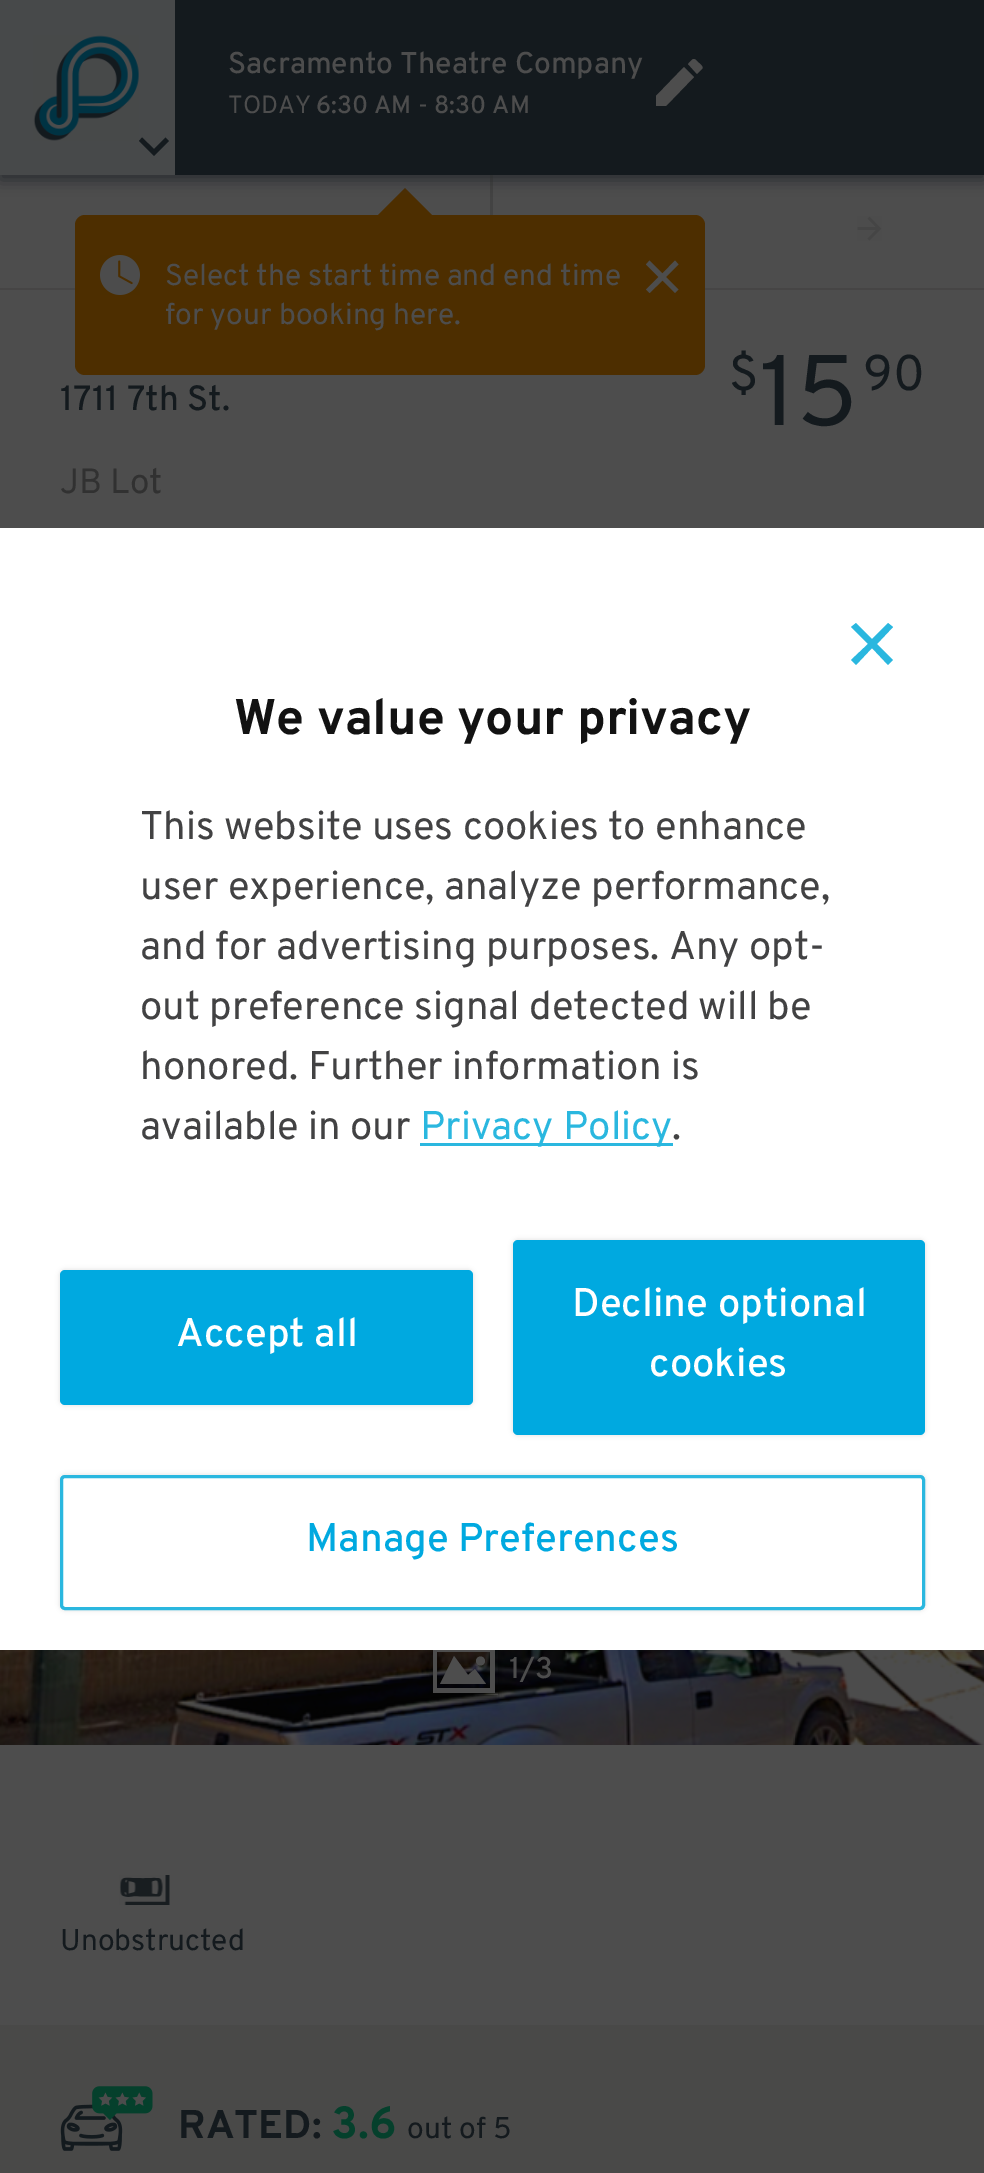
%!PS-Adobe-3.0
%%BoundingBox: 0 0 984 2173
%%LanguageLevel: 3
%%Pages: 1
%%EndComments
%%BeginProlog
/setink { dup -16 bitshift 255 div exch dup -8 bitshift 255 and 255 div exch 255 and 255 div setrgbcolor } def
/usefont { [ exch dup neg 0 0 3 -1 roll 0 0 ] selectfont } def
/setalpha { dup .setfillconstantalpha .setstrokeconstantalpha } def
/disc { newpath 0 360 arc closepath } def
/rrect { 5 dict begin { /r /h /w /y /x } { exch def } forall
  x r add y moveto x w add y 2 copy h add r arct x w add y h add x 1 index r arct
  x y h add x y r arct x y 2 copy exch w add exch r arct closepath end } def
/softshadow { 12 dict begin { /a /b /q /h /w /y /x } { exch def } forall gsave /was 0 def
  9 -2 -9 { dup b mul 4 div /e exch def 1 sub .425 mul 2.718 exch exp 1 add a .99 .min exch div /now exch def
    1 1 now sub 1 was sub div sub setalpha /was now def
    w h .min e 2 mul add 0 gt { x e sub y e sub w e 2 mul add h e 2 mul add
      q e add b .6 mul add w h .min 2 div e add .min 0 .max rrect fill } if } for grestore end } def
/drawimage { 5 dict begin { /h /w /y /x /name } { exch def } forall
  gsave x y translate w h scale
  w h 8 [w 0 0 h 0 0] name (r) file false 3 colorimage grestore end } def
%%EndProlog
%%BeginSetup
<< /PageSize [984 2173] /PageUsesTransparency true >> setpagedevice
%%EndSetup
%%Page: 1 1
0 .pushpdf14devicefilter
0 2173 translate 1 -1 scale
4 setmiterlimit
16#4D4D4D setink
0 0 984 2173 rectfill
16#464545 setink
0 288 984 2 rectfill
16#4D2E00 setink
75 215 630 160 10 rrect fill
435 218 moveto 375 218 lineto 405 188 lineto closepath fill
16#434343 setink
490 175 3 40 rectfill
16#282C2F setink
0 5 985 175 0 7.5 1 softshadow
16#141A1E setink
175 0 809 175 rectfill
16#47494A setink
0 0 175 175 rectfill
(img1.raw) 33 35 106 106 drawimage
16#141A1E setink
165.5 137.5 moveto 169 141 lineto 154 156 lineto 139 141 lineto 142 137.5 lineto 154 149 lineto closepath fill
/Overpass-Medium 30 usefont
16#4D4D4D setink
228 73 moveto (Sacramento Theatre Company) show
/Overpass-Regular 25 usefont
228 113 moveto (TODAY) show
/Overpass-Medium 25 usefont
316 113 moveto (6:30 AM) show
/Overpass-Regular 25 usefont
418 113 moveto (-) show
/Overpass-Medium 25 usefont
434 113 moveto (8:30 AM) show
656 96 moveto 656 106 lineto 666 106 lineto 694 77 lineto 684 67 lineto closepath 702 69 moveto 704 67 700 64 699 63 curveto 693 57 694 58 688 64 curveto 697 74 lineto closepath fill
(img2.raw) 100 255 40 40 drawimage
/Overpass-Regular 30 usefont
165 285 moveto (Select the start time and end time) show
165 324 moveto (for your booking here.) show
662.5 273.5 moveto 675 260.5 lineto 678.5 264.5 lineto 666 277 lineto 678.5 289.5 lineto 675 293 lineto 662.5 280.5 lineto 649.5 293 lineto 646 289.5 lineto 658.5 277 lineto 646 264.5 lineto 649.5 260.5 lineto closepath fill
(img3.raw) 857 216 25 25 drawimage
/Overpass-Medium 35 usefont
16#141A1E setink
60 410 moveto (1711 7th St.) show
/Overpass-Regular 35 usefont
16#313131 setink
60 493 moveto (JB Lot) show
/Overpass-Regular 50 usefont
16#141A1E setink
729 390 moveto ($) show
/Overpass-Regular 100 usefont
759 425 moveto (15) show
/Overpass-Regular 50 usefont
863 390 moveto (90) show
(img4.raw) 0 1650 984 95 drawimage
gsave
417 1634 moveto 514 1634 lineto 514 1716 lineto 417 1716 lineto closepath 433 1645 moveto 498 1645 lineto 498 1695 lineto 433 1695 lineto closepath eoclip newpath
16#000000 setink
433 1650 65 50 0 5 0.5 softshadow
grestore
gsave
433 1645 65 50 rectclip
16#4D4D4D setink
431 1693 moveto 431 1647 lineto 495 1647 lineto 495 1693 lineto closepath 437 1688 moveto 490 1688 lineto 490 1652 lineto 437 1652 lineto closepath eofill
grestore
16#4D4D4D setink
454 1656 moveto 440 1684 lineto 486 1684 lineto 475 1669 lineto 468 1675 lineto closepath eofill
480.5 1661 4.5 disc fill
/Overpass-Medium 30 usefont
509 1678 moveto (1/3) show
(img5.raw) 119 1875 51 30 drawimage
/Overpass-Regular 30 usefont
16#141A1E setink
60 1950 moveto (Unobstructed) show
16#494948 setink
0 2025 984 148 rectfill
(img6.raw) 60 2086 93 65 drawimage
/Overpass-Bold 40 usefont
16#141A1E setink
178 2138 moveto (RATED:) show
/Overpass-Bold 45 usefont
16#05402C setink
331 2138 moveto (3.6) show
/Overpass-Regular 30 usefont
16#141A1E setink
407 2138 moveto (out of 5) show
16#FFFFFF setink
0 528 984 1122 rectfill
16#2AB7DF setink
872 639 moveto 888 623 lineto 893 627 lineto 877 644 lineto 893 660 lineto 888 665 lineto 872 648 lineto 856 665 lineto 851 660 lineto 868 644 lineto 851 627 lineto 856 623 lineto closepath fill
/Overpass-Bold 50 usefont
16#121212 setink
234 734 moveto (We value your privacy) show
/Overpass-Regular 40 usefont
16#424243 setink
[
    [(This website uses cookies to enhance) 140 839]
    [(user experience, analyze performance,) 140 899]
    [(and for advertising purposes. Any opt-) 140 959]
    [(out preference signal detected will be) 140 1019]
    [(honored. Further information is) 140 1079]
    [(available in our) 140 1139]
] { aload pop moveto show } forall
16#2AB7DF setink
420 1143 253 3 rectfill
420 1139 moveto (Privacy Policy) show
16#424243 setink
672 1139 moveto (.) show
16#000000 setink
60 1270 413 135 5 2.5 0.12 softshadow
16#00A9E0 setink
60 1270 413 135 5 rrect fill
/Overpass-Medium 40 usefont
16#FFFFFF setink
176 1346 moveto (Accept all) show
16#000000 setink
513 1240 412 195 5 2.5 0.12 softshadow
16#00A9E0 setink
513 1240 412 195 5 rrect fill
16#FFFFFF setink
572 1316 moveto (Decline optional) show
649 1376 moveto (cookies) show
gsave
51 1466 moveto 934 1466 lineto 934 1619 lineto 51 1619 lineto closepath 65 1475 moveto 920 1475 lineto 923 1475 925 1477 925 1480 curveto 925 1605 lineto 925 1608 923 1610 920 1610 curveto 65 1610 lineto 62 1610 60 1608 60 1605 curveto 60 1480 lineto 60 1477 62 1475 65 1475 curveto closepath eoclip newpath
16#000000 setink
60 1475 865 135 5 2.5 0.12 softshadow
grestore
16#2AB7DF setink
3 setlinewidth
61.5 1476.5 862 132 3.5 rrect stroke
16#00A9E0 setink
306 1551 moveto (Manage Preferences) show
.poppdf14devicefilter showpage
%%EOF
